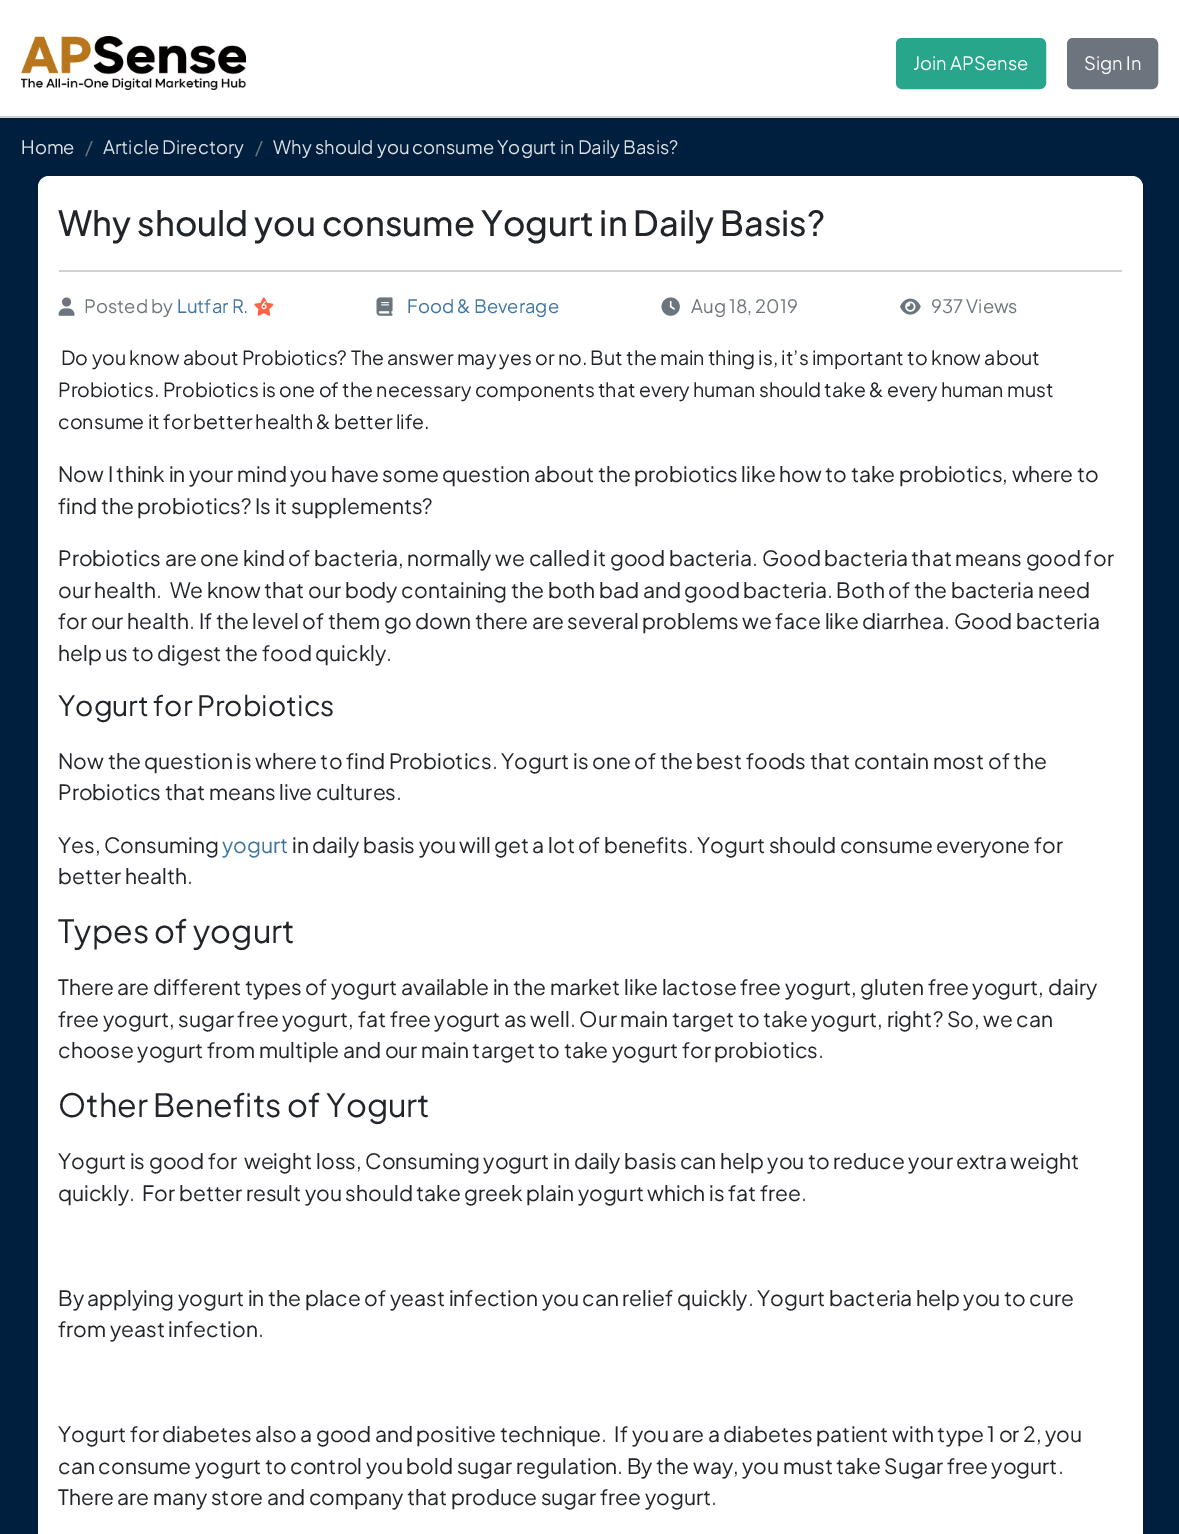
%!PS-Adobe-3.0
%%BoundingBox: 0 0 1179 1534
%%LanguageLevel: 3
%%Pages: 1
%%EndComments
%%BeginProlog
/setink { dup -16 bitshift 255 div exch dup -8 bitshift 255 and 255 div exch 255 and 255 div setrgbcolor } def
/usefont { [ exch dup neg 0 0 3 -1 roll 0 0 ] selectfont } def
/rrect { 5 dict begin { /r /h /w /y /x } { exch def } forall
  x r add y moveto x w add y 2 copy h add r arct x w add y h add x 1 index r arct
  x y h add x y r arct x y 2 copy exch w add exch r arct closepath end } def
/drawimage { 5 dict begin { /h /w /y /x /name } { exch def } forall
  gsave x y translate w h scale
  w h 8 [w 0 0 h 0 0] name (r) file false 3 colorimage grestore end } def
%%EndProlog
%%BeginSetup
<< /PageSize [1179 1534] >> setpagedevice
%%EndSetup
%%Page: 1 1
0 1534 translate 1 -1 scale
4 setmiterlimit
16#001F3F setink
0 0 1179 1534 rectfill
16#FFFFFF setink
0 0 1179 116 rectfill
16#D1D1D1 setink
0 116 1179 2 rectfill
(img1.raw) 21 36 225 54 drawimage
16#27A68C setink
897 39 148 49 5 rrect gsave fill grestore
2 setlinewidth
stroke
/PlusJakartaSans-Regular 18.4 usefont
16#FFFFFF setink
913 70 moveto (Join APSense) show
16#6C757D setink
1068 39 89 49 5 rrect gsave fill grestore
stroke
16#FFFFFF setink
1084 70 moveto (Sign In) show
16#DEE2E6 setink
21 154 moveto (Home) show
16#6C757D setink
85 154 moveto (/) show
16#DEE2E6 setink
103 154 moveto (Article Directory) show
16#6C757D setink
255 154 moveto (/) show
16#DEE2E6 setink
273 154 moveto (Why should you consume Yogurt in Daily Basis?) show
16#FFFFFF setink
38 176 1105 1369 11 rrect fill
16#D1D1D1 setink
59 270 1063 2 rectfill
/PlusJakartaSans-Medium 34.4 usefont
16#212529 setink
58 236 moveto (Why should you consume Yogurt in Daily Basis?) show
(img2.raw) 58 297 17 19 drawimage
/PlusJakartaSans-Regular 18.4 usefont
16#6C757D setink
84 313 moveto (Posted by) show
16#3E74A0 setink
177 313 moveto (Lutfar R.) show
(img3.raw) 254 297 20 19 drawimage
/PlusJakartaSans-Bold 10 usefont
16#FFFFFF setink
261 309 moveto (6) show
(img4.raw) 376 297 17 19 drawimage
/PlusJakartaSans-Regular 18.4 usefont
16#3E74A0 setink
407 313 moveto (Food & Beverage) show
(img5.raw) 661 297 19 19 drawimage
16#6C757D setink
691 313 moveto (Aug 18, 2019) show
(img6.raw) 900 298 21 17 drawimage
931 313 moveto (937 Views) show
/PlusJakartaSans-Regular 19.5 usefont
16#212529 setink
[
    [(Do you know about Probiotics? The answer may yes or no. But the main thing is, it’s important to know about) 61 365]
    [(Probiotics. Probiotics is one of the necessary components that every human should take & every human must) 58 397]
    [(consume it for better health & better life.) 58 429]
] { aload pop moveto show } forall
/PlusJakartaSans-Regular 21 usefont
[
    [(Now I think in your mind you have some question about the probiotics like how to take probiotics, where to) 58 482]
    [(find the probiotics? Is it supplements?) 58 514]
    [(Probiotics are one kind of bacteria, normally we called it good bacteria. Good bacteria that means good for) 58 566]
    [(our health.  We know that our body containing the both bad and good bacteria. Both of the bacteria need) 58 598]
    [(for our health. If the level of them go down there are several problems we face like diarrhea. Good bacteria) 58 629]
    [(help us to digest the food quickly.) 58 661]
] { aload pop moveto show } forall
/PlusJakartaSans-Regular 28 usefont
58 716 moveto (Yogurt for Probiotics) show
/PlusJakartaSans-Regular 21 usefont
[
    [(Now the question is where to find Probiotics. Yogurt is one of the best foods that contain most of the) 58 769]
    [(Probiotics that means live cultures.) 58 800]
    [(Yes, Consuming) 58 853]
] { aload pop moveto show } forall
16#3E74A0 setink
222 853 moveto (yogurt) show
16#212529 setink
292 853 moveto (in daily basis you will get a lot of benefits. Yogurt should consume everyone for) show
58 884 moveto (better health.) show
/PlusJakartaSans-Regular 32 usefont
58 943 moveto (Types of yogurt) show
/PlusJakartaSans-Regular 21 usefont
[
    [(There are different types of yogurt available in the market like lactose free yogurt, gluten free yogurt, dairy) 58 995]
    [(free yogurt, sugar free yogurt, fat free yogurt as well. Our main target to take yogurt, right? So, we can) 58 1027]
    [(choose yogurt from multiple and our main target to take yogurt for probiotics.) 58 1058]
] { aload pop moveto show } forall
/PlusJakartaSans-Regular 32 usefont
58 1117 moveto (Other Benefits of Yogurt) show
/PlusJakartaSans-Regular 21 usefont
[
    [(Yogurt is good for  weight loss, Consuming yogurt in daily basis can help you to reduce your extra weight) 58 1169]
    [(quickly.  For better result you should take greek plain yogurt which is fat free.) 58 1201]
    [(By applying yogurt in the place of yeast infection you can relief quickly. Yogurt bacteria help you to cure) 58 1306]
    [(from yeast infection.) 58 1337]
    [(Yogurt for diabetes also a good and positive technique.  If you are a diabetes patient with type 1 or 2, you) 58 1442]
    [(can consume yogurt to control you bold sugar regulation. By the way, you must take Sugar free yogurt.) 58 1474]
    [(There are many store and company that produce sugar free yogurt.) 58 1505]
] { aload pop moveto show } forall
showpage
%%EOF
